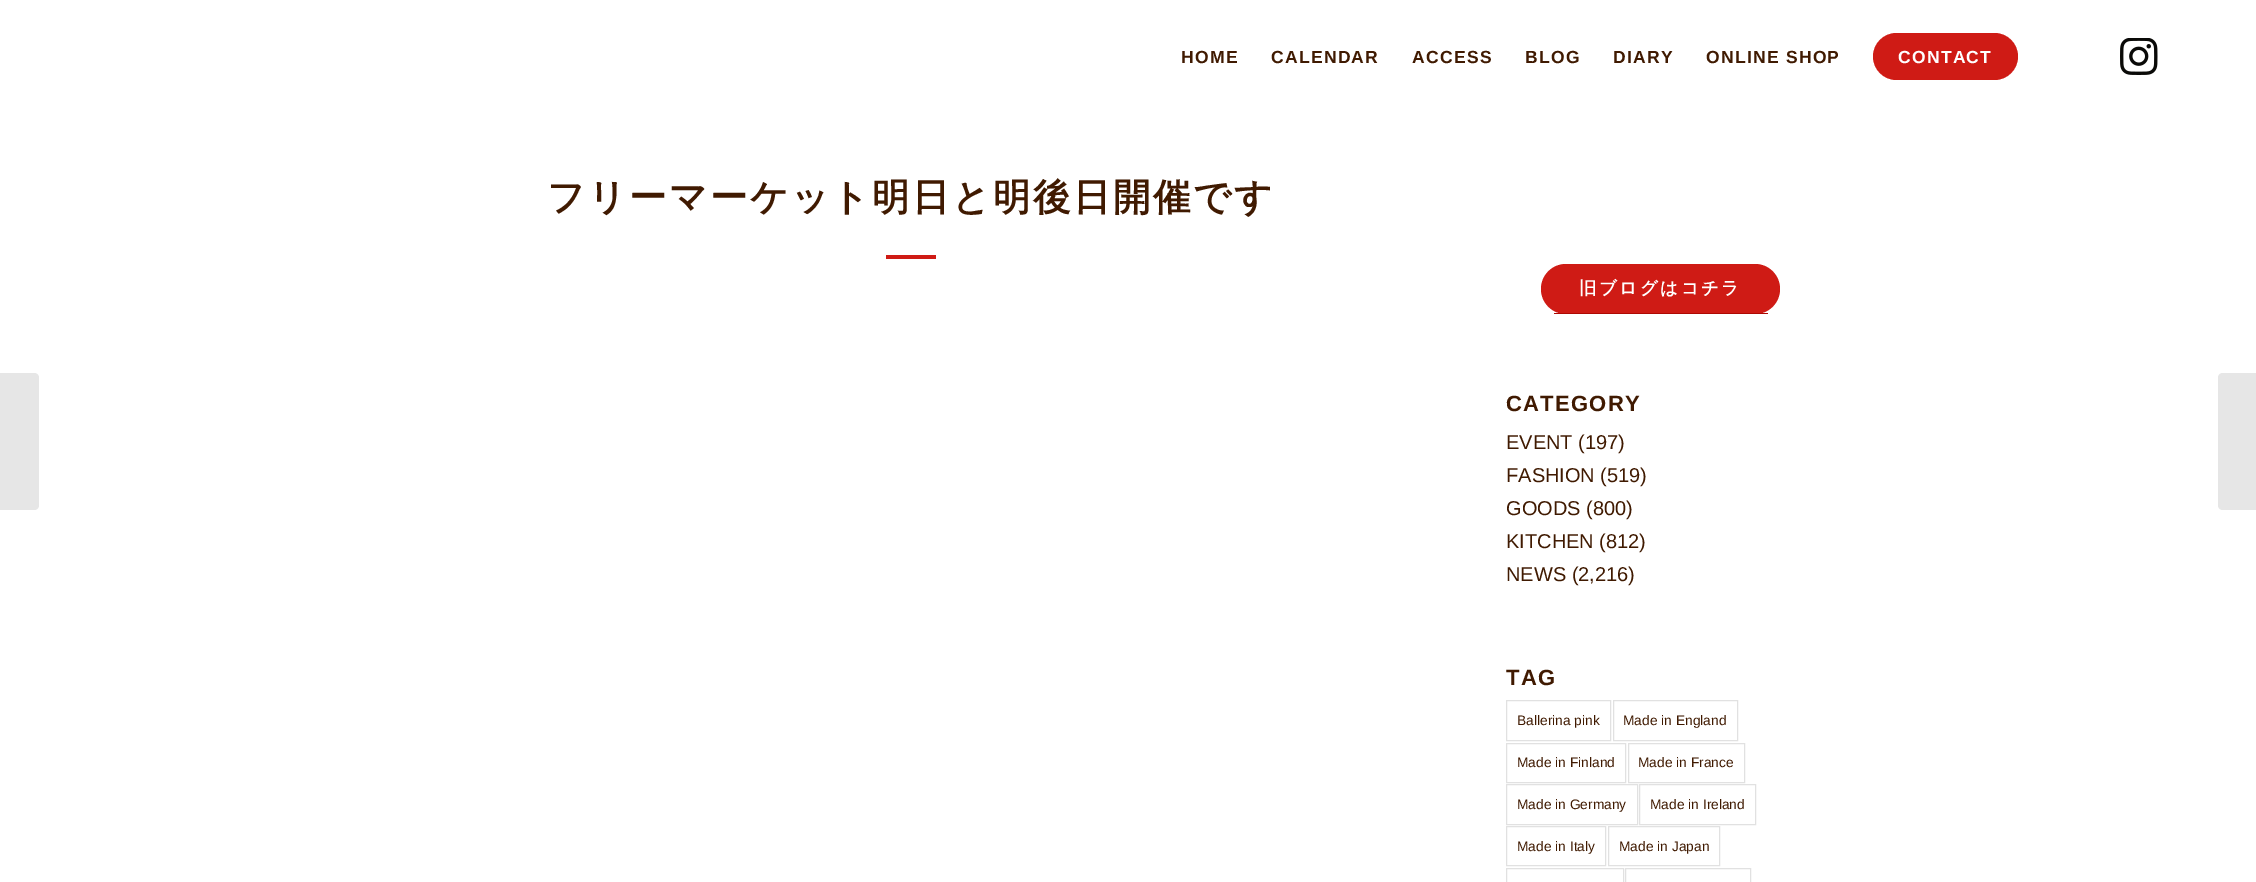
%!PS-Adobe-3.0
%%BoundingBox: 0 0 2256 882
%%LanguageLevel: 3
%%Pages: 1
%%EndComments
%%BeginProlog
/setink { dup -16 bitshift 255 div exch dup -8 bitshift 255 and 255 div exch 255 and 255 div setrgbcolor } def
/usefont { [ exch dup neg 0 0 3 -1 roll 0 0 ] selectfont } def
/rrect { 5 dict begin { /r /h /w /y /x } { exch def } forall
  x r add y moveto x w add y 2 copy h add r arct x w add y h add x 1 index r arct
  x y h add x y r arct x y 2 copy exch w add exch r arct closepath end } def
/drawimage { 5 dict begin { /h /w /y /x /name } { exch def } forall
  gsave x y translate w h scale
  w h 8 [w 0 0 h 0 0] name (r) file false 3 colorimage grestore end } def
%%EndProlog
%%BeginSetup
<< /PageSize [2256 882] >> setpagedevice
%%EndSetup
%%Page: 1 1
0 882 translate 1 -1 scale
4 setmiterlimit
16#FFFFFF setink
0 0 2256 882 rectfill
/LiberationSans-Bold 17.5 usefont
16#401A01 setink
1181 63 moveto 1.25 0 (HOME) ashow
1271 63 moveto 1.25 0 (CALENDAR) ashow
1412 63 moveto 1.25 0 (ACCESS) ashow
1525 63 moveto 1.25 0 (BLOG) ashow
1613 63 moveto 1.25 0 (DIARY) ashow
1706 63 moveto 1.25 0 (ONLINE SHOP) ashow
16#CF1B15 setink
1873 33 145 47 23.5 rrect fill
16#FFFFFF setink
1898 63 moveto 1.25 0 (CONTACT) ashow
(img1.raw) 2120 38 38 37 drawimage
16#E6E6E6 setink
0 373 moveto 34 373 lineto 37 373 39 375 39 378 curveto 39 505 lineto 39 508 37 510 34 510 curveto 0 510 lineto closepath fill
/WenQuanYiZenHei-Bold 37.5 usefont
16#401A01 setink
547 210 moveto 2.5 0 (フリーマーケット明日と明後日開催です) ashow
16#CF1B15 setink
886 255 50 4 rectfill
1541 264 239 50 25 rrect fill
16#AD0903 setink
1554 313 214 1 rectfill
/WenQuanYiZenHei-Bold 17.5 usefont
16#FFFFFF setink
1579 294 moveto 2.5 0 (旧ブログはコチラ) ashow
/LiberationSans-Bold 22 usefont
16#401A01 setink
1506 411 moveto 1.25 0 (CATEGORY) ashow
/LiberationSans-Regular 20 usefont
[
    [(EVENT \(197\)) 1506 449]
    [(FASHION \(519\)) 1506 482]
    [(GOODS \(800\)) 1506 515]
    [(KITCHEN \(812\)) 1506 548]
    [(NEWS \(2,216\)) 1506 581]
] { aload pop moveto show } forall
/LiberationSans-Bold 22 usefont
1506 685 moveto 1.25 0 (TAG) ashow
16#E1E1E1 setink
1506.5 700.5 104 40 rectstroke
/LiberationSans-Regular 13.75 usefont
16#401A01 setink
1517 725 moveto (Ballerina pink) show
16#E1E1E1 setink
1613.5 700.5 124 40 rectstroke
16#401A01 setink
1623 725 moveto (Made in England) show
16#E1E1E1 setink
1506.5 743.5 119 39 rectstroke
16#401A01 setink
1517 767 moveto (Made in Finland) show
16#E1E1E1 setink
1628.5 743.5 116 39 rectstroke
16#401A01 setink
1638 767 moveto (Made in France) show
16#E1E1E1 setink
1506.5 784.5 131 40 rectstroke
16#401A01 setink
1517 809 moveto (Made in Germany) show
16#E1E1E1 setink
1639.5 784.5 116 40 rectstroke
16#401A01 setink
1650 809 moveto (Made in Ireland) show
16#E1E1E1 setink
1506.5 826.5 99 39 rectstroke
16#401A01 setink
1517 851 moveto (Made in Italy) show
16#E1E1E1 setink
1608.5 826.5 111 39 rectstroke
16#401A01 setink
1619 851 moveto (Made in Japan) show
16#E1E1E1 setink
1506.5 868.5 117 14 rectstroke
1625.5 868.5 125 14 rectstroke
16#E6E6E6 setink
2223 373 moveto 2256 373 lineto 2256 510 lineto 2223 510 lineto 2220 510 2218 508 2218 505 curveto 2218 378 lineto 2218 375 2220 373 2223 373 curveto closepath fill
showpage
%%EOF
